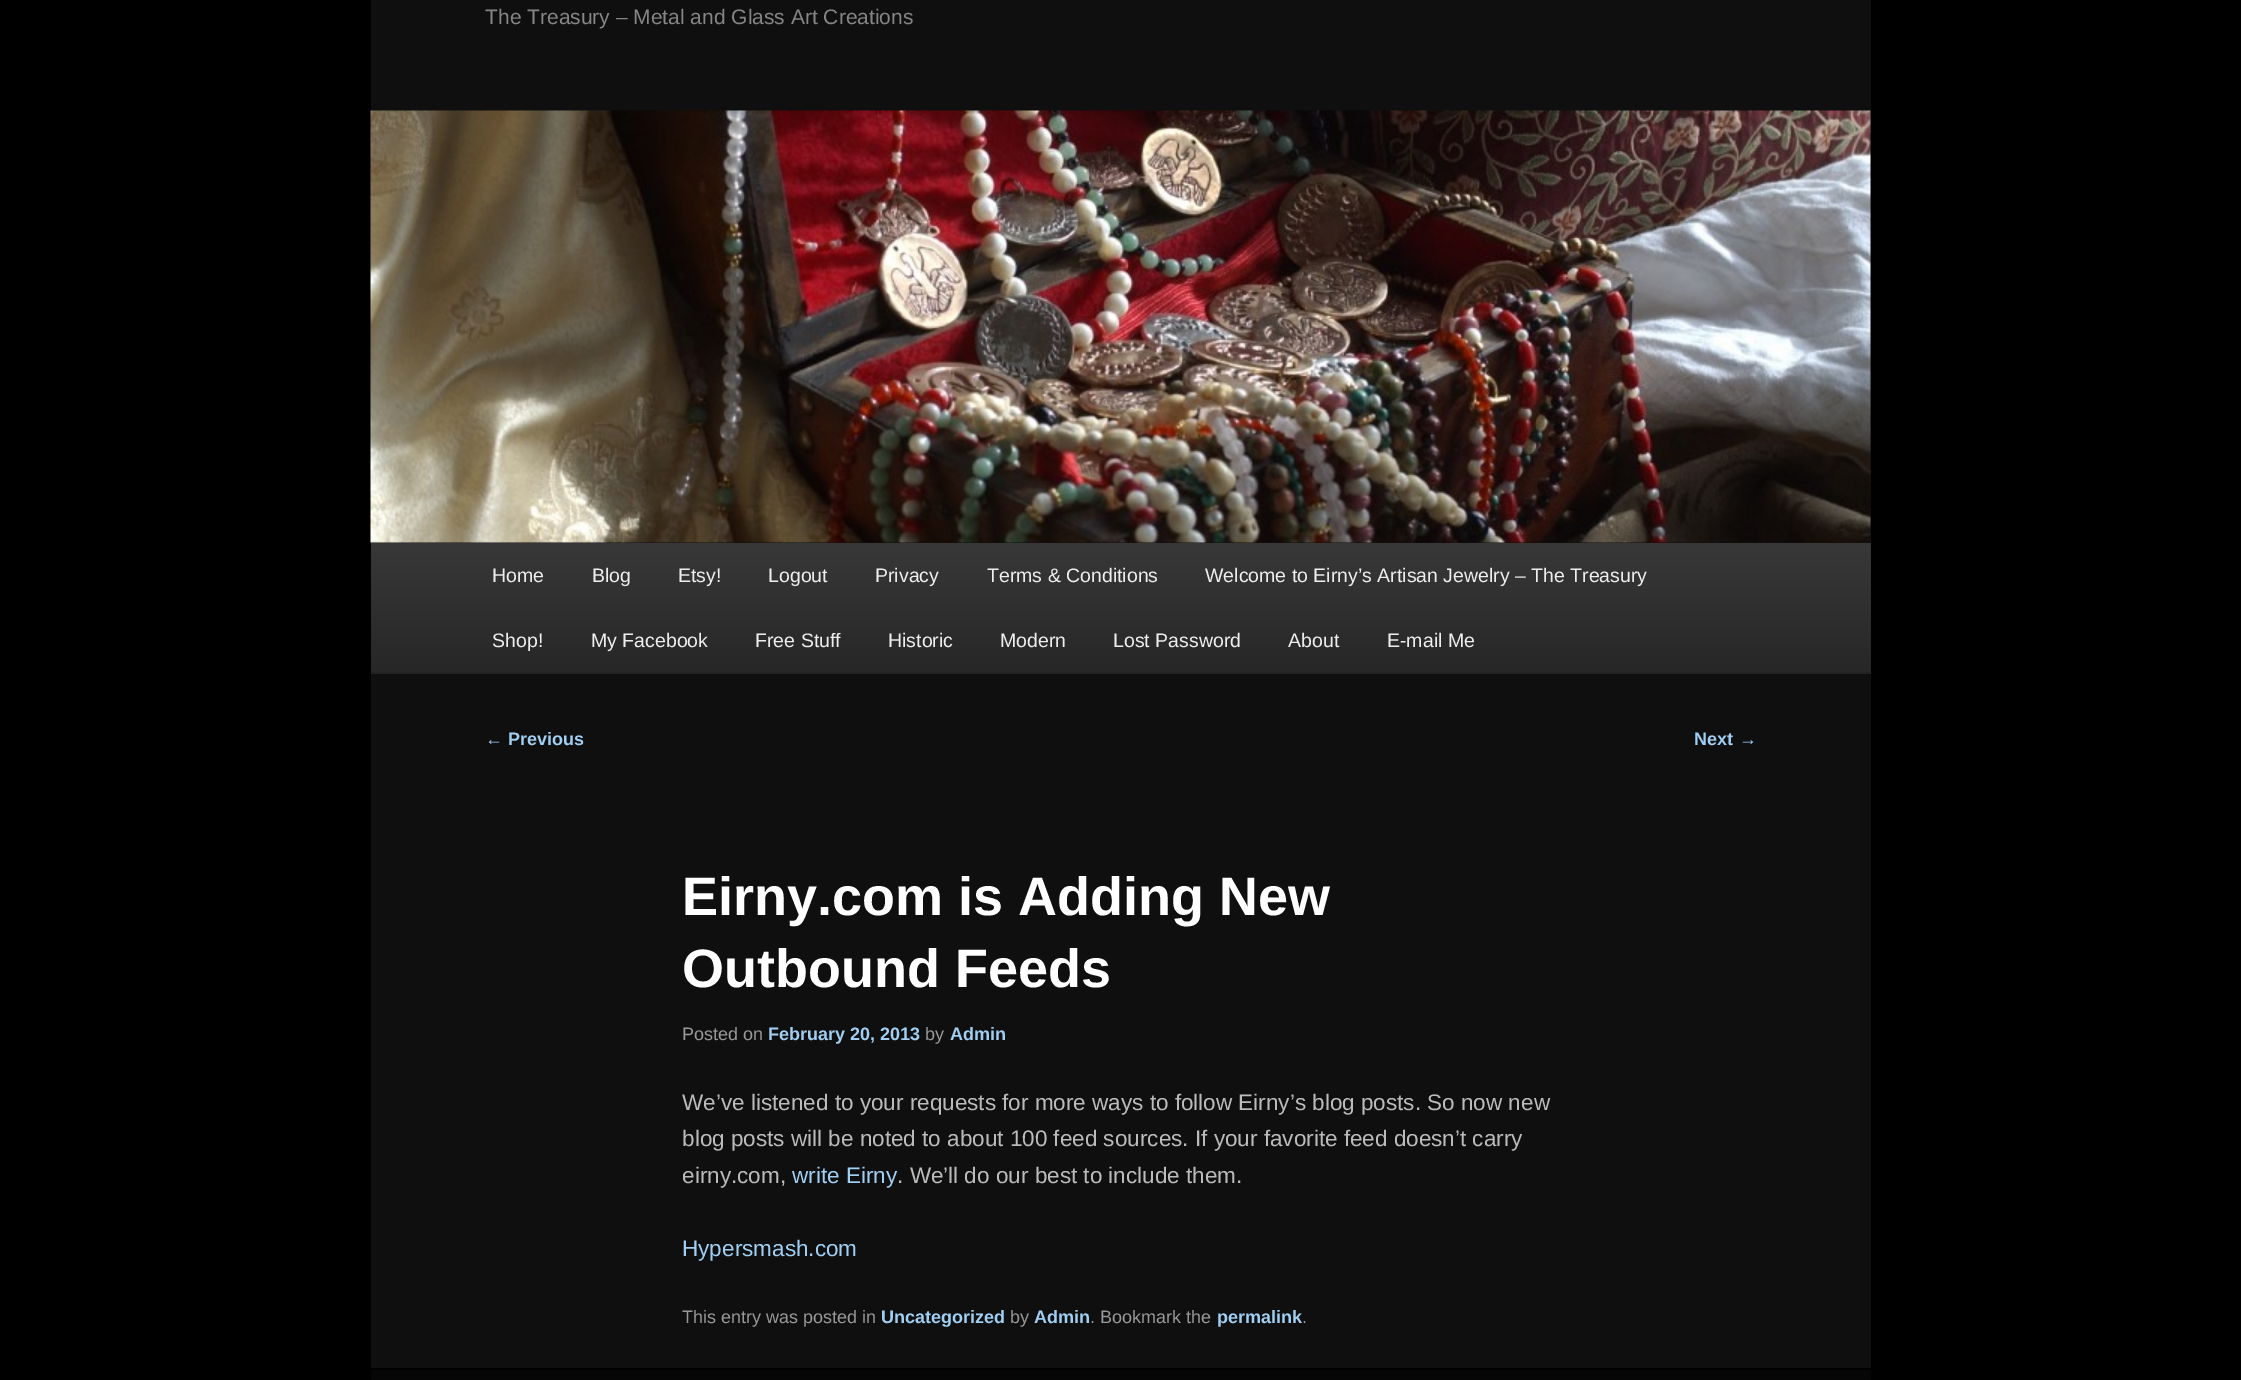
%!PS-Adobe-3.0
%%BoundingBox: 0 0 2241 1380
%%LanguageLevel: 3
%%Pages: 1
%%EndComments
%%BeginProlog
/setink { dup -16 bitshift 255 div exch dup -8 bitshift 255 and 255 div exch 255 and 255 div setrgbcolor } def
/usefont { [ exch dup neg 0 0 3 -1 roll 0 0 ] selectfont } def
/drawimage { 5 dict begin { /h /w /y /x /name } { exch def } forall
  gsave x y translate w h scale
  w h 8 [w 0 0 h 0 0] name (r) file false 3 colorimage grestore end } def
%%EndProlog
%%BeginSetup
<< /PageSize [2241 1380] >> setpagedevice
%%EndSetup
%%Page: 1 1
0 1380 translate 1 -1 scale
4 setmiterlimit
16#000000 setink
0 0 2241 1380 rectfill
16#0F0F0F setink
371 0 1500 1368 rectfill
/LiberationSans-Regular 21 usefont
16#858585 setink
485 24 moveto (The Treasury – Metal and Glass Art Creations) show
(img1.raw) 370 110 1501 433 drawimage
gsave 371 543 moveto 1871 543 lineto 1871 672 lineto 371 672 lineto closepath clip newpath
<< /ShadingType 2 /ColorSpace /DeviceRGB /Coords [1121 543 1121 672] /Extend [true true] /Function << /FunctionType 2 /Domain [0 1] /C0 [0.22 0.22 0.22] /C1 [0.153 0.153 0.153] /N 1 >> >> shfill grestore
16#222222 setink
371 672 1500 2 rectfill
/LiberationSans-Regular 19.5 usefont
16#EEEEEE setink
[
    [(Home) 492 582]
    [(Blog) 592 582]
    [(Etsy!) 678 582]
    [(Logout) 768 582]
    [(Privacy) 875 582]
    [(Terms & Conditions) 987 582]
    [(Welcome to Eirny’s Artisan Jewelry – The Treasury) 1205 582]
    [(Shop!) 492 647]
    [(My Facebook) 591 647]
    [(Free Stuff) 755 647]
    [(Historic) 888 647]
    [(Modern) 1000 647]
    [(Lost Password) 1113 647]
    [(About) 1288 647]
    [(E-mail Me) 1387 647]
] { aload pop moveto show } forall
/LiberationSans-Regular 18 usefont
16#A0CFF3 setink
485 745 moveto (←) show
/LiberationSans-Bold 18 usefont
508 745 moveto (Previous) show
1694 745 moveto (Next) show
/LiberationSans-Regular 18 usefont
1739 745 moveto (→) show
/LiberationSans-Bold 54 usefont
16#FFFFFF setink
682 915 moveto (Eirny.com is Adding New) show
682 987 moveto (Outbound Feeds) show
/LiberationSans-Regular 18 usefont
16#999999 setink
682 1040 moveto (Posted on) show
/LiberationSans-Bold 18 usefont
16#A0CFF3 setink
768 1040 moveto (February 20, 2013) show
/LiberationSans-Regular 18 usefont
16#999999 setink
925 1040 moveto (by) show
/LiberationSans-Bold 18 usefont
16#A0CFF3 setink
950 1040 moveto (Admin) show
/LiberationSans-Regular 22.5 usefont
16#BBBBBB setink
[
    [(We’ve listened to your requests for more ways to follow Eirny’s blog posts. So now new) 682 1110]
    [(blog posts will be noted to about 100 feed sources. If your favorite feed doesn’t carry) 682 1146]
    [(eirny.com,) 682 1183]
] { aload pop moveto show } forall
16#A0CFF3 setink
792 1183 moveto (write Eirny) show
16#BBBBBB setink
897 1183 moveto (. We’ll do our best to include them.) show
16#A0CFF3 setink
682 1256 moveto (Hypersmash.com) show
/LiberationSans-Regular 18 usefont
16#999999 setink
682 1323 moveto (This entry was posted in) show
/LiberationSans-Bold 18 usefont
16#A0CFF3 setink
881 1323 moveto (Uncategorized) show
/LiberationSans-Regular 18 usefont
16#999999 setink
1010 1323 moveto (by) show
/LiberationSans-Bold 18 usefont
16#A0CFF3 setink
1034 1323 moveto (Admin) show
/LiberationSans-Regular 18 usefont
16#999999 setink
1090 1323 moveto (. Bookmark the) show
/LiberationSans-Bold 18 usefont
16#A0CFF3 setink
1217 1323 moveto (permalink) show
/LiberationSans-Regular 18 usefont
16#999999 setink
1302 1323 moveto (.) show
16#060606 setink
371 1370 1500 10 rectfill
showpage
%%EOF
